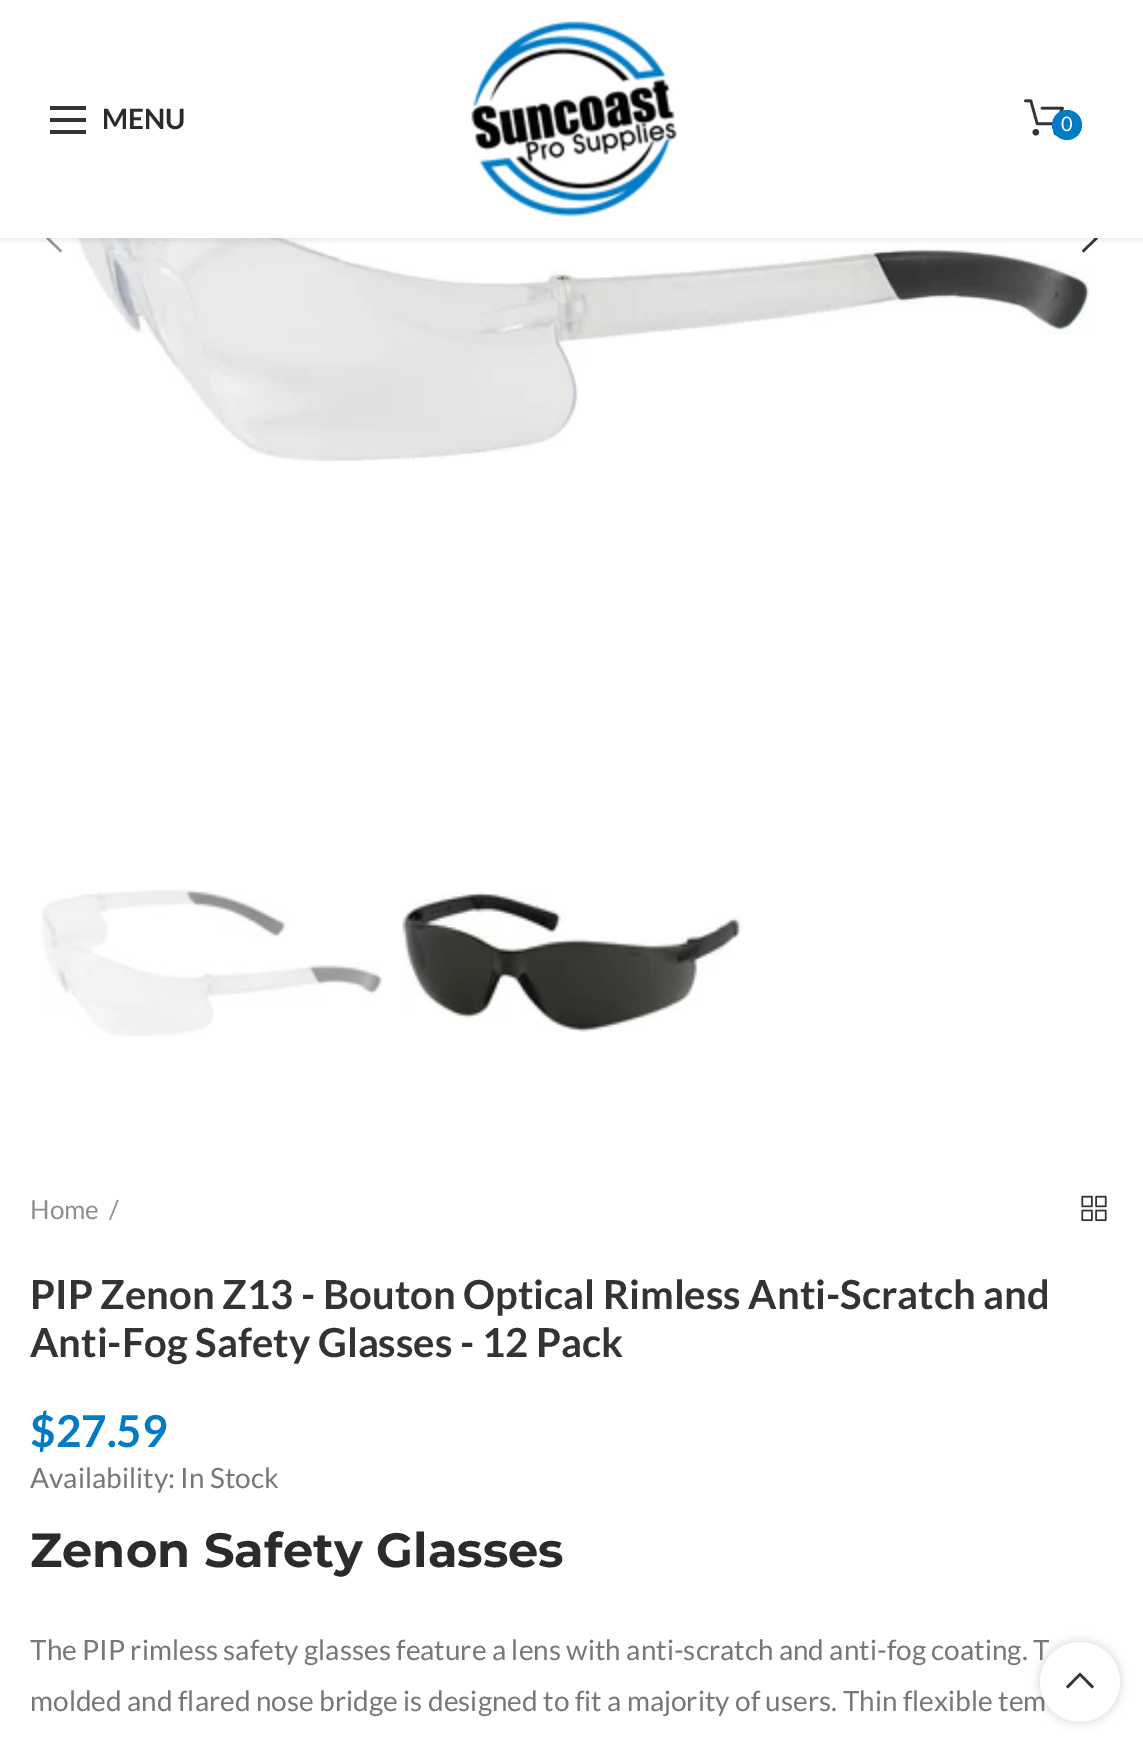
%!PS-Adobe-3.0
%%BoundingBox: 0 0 1143 1746
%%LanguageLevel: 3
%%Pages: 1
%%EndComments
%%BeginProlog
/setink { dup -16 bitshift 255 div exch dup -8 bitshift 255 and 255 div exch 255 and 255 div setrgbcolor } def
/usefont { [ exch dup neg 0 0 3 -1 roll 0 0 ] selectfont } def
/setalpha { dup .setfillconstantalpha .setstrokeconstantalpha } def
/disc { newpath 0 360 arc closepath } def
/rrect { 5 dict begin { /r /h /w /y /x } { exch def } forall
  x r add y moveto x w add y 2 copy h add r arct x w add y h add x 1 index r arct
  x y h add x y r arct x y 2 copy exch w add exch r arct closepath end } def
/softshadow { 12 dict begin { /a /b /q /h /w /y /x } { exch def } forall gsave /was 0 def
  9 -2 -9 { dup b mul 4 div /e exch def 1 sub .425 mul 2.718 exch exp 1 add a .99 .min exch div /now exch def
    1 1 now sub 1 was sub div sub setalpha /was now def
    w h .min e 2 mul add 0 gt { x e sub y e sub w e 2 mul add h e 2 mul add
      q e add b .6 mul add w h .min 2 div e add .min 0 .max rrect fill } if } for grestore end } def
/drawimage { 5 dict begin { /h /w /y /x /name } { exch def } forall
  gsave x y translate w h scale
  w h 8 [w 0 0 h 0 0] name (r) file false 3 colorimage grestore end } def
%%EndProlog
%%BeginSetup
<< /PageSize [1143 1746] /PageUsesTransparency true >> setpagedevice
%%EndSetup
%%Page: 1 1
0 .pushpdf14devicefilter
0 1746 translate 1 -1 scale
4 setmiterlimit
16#FFFFFF setink
0 0 1143 1746 rectfill
(img3.raw) 56 238 1033 224 drawimage
16#999999 setink
62 226.5 moveto 49.5 238.5 lineto 62 250.5 lineto 60.5 252.5 lineto 46 238.5 lineto 60.5 224.5 lineto closepath fill
16#333333 setink
1083.5 224.5 moveto 1098 238.5 lineto 1083.5 252.5 lineto 1082 250.5 lineto 1094.5 238.5 lineto 1082 226.5 lineto closepath fill
16#000000 setink
0 2 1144 238 0 3 0.1 softshadow
[
    [0 0 1143 238 16#FFFFFF]
    [50 118 36 4 16#333333]
    [50 106 36 4 16#333333]
    [50 130 36 4 16#333333]
] { aload pop setink rectfill } forall
/Lato-Bold 28 usefont
16#2D2A2A setink
102 129 moveto (MENU) show
(img1.raw) 471 21 206 196 drawimage
(img2.raw) 1024 99 40 37 drawimage
16#007BC4 setink
1067 125 15 disc fill
/Lato-Regular 20 usefont
16#FFFFFF setink
1061 131 moveto (0) show
(img4.raw) 40 889 342 148 drawimage
(img5.raw) 402 892 340 140 drawimage
/Lato-Regular 26 usefont
16#8E8E8E setink
30 1219 moveto (Home) show
109 1219 moveto (/) show
(img6.raw) 1081 1195 26 27 drawimage
/Lato-Bold 40 usefont
16#333333 setink
30 1309 moveto (PIP Zenon Z13 - Bouton Optical Rimless Anti-Scratch and) show
30 1357 moveto (Anti-Fog Safety Glasses - 12 Pack) show
/Lato-Bold 44 usefont
16#007BC4 setink
30 1447 moveto ($27.59) show
/Lato-Regular 28 usefont
16#777777 setink
30 1488 moveto (Availability: In Stock) show
/Montserrat-Bold 48 usefont
16#2D2A2A setink
30 1567 moveto (Zenon Safety Glasses) show
/Lato-Regular 28 usefont
16#777777 setink
30 1660 moveto (The PIP rimless safety glasses feature a lens with anti-scratch and anti-fog coating. T) show
30 1711 moveto (molded and flared nose bridge is designed to fit a majority of users. Thin flexible tem) show
gsave
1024 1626 moveto 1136 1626 lineto 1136 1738 lineto 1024 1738 lineto closepath 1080 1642 moveto 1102 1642 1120 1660 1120 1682 curveto 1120 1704 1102 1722 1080 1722 curveto 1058 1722 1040 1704 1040 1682 curveto 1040 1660 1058 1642 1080 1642 curveto closepath eoclip newpath
16#000000 setink
1040 1642 80 80 40 5 0.17 softshadow
grestore
0.9 setalpha
16#FFFFFF setink
1080 1682 40 disc fill
1 setalpha
16#333333 setink
1080 1672.5 moveto 1094 1686.5 lineto 1092 1688.5 lineto 1080 1676 lineto 1068 1688.5 lineto 1066 1686.5 lineto closepath fill
.poppdf14devicefilter showpage
%%EOF
